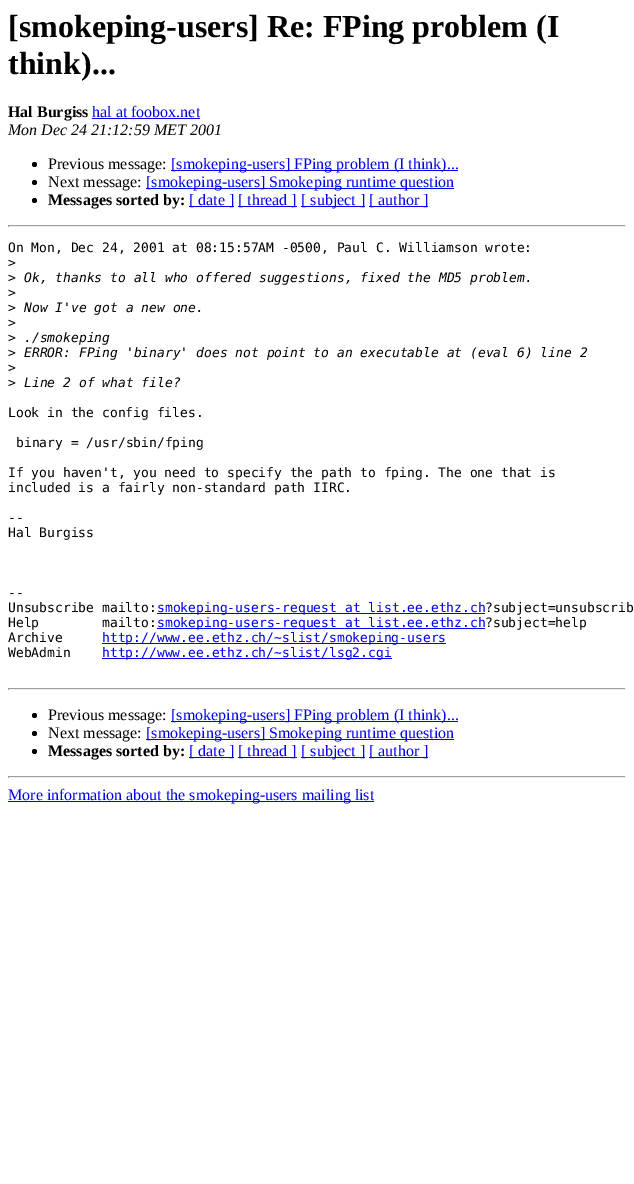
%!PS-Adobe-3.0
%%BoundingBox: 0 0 634 1184
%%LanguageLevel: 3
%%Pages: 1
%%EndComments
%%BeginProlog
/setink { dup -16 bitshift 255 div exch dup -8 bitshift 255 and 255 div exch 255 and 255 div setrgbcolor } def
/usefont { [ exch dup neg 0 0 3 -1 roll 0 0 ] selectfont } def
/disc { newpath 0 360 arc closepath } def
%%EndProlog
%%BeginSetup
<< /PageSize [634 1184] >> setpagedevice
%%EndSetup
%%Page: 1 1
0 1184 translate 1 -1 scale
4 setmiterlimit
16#FFFFFF setink
0 0 634 1184 rectfill
/LiberationSerif-Bold 32 usefont
16#000000 setink
8 37 moveto ([smokeping-users] Re: FPing problem \(I) show
8 74 moveto (think\)...) show
/LiberationSerif-Bold 16 usefont
8 117 moveto (Hal Burgiss) show
/LiberationSerif-Regular 16 usefont
16#0000EE setink
92 117 moveto (hal at foobox.net) show
92 118 108 1 rectfill
/LiberationSerif-Italic 16 usefont
16#000000 setink
8 135 moveto (Mon Dec 24 21:12:59 MET 2001) show
34.5 164.5 2.5 disc fill
/LiberationSerif-Regular 16 usefont
48 169 moveto (Previous message:) show
16#0000EE setink
171 170 287 1 rectfill
171 169 moveto ([smokeping-users] FPing problem \(I think\)...) show
16#000000 setink
34.5 182.5 2.5 disc fill
48 187 moveto (Next message:) show
16#0000EE setink
146 188 308 1 rectfill
146 187 moveto ([smokeping-users] Smokeping runtime question) show
16#000000 setink
34.5 200.5 2.5 disc fill
/LiberationSerif-Bold 16 usefont
48 205 moveto (Messages sorted by:) show
16#0000EE setink
189 206 45 1 rectfill
/LiberationSerif-Regular 16 usefont
189 205 moveto ([ date ]) show
238 206 59 1 rectfill
238 205 moveto ([ thread ]) show
301 206 64 1 rectfill
301 205 moveto ([ subject ]) show
369 206 59 1 rectfill
369 205 moveto ([ author ]) show
[
    [8 225 618 1 16#9F9F9F]
    [625 225 1 2 16#EEEEEE]
    [8 226 618 1 16#EEEEEE]
    [8 225 1 2 16#9F9F9F]
] { aload pop setink rectfill } forall
/DejaVuSansMono-Regular 13 usefont
16#000000 setink
[
    [(On Mon, Dec 24, 2001 at 08:15:57AM -0500, Paul C. Williamson wrote:) 8 252]
    [(>) 8 267]
    [(>) 8 282]
] { aload pop moveto show } forall
/DejaVuSansMono-Italic 13 usefont
24 282 moveto (Ok, thanks to all who offered suggestions, fixed the MD5 problem.) show
/DejaVuSansMono-Regular 13 usefont
8 297 moveto (>) show
8 312 moveto (>) show
/DejaVuSansMono-Italic 13 usefont
24 312 moveto (Now I've got a new one.) show
/DejaVuSansMono-Regular 13 usefont
8 327 moveto (>) show
8 342 moveto (>) show
/DejaVuSansMono-Italic 13 usefont
24 342 moveto (./smokeping) show
/DejaVuSansMono-Regular 13 usefont
8 357 moveto (>) show
/DejaVuSansMono-Italic 13 usefont
24 357 moveto (ERROR: FPing 'binary' does not point to an executable at \(eval 6\) line 2) show
/DejaVuSansMono-Regular 13 usefont
8 372 moveto (>) show
8 387 moveto (>) show
/DejaVuSansMono-Italic 13 usefont
24 387 moveto (Line 2 of what file?) show
/DejaVuSansMono-Regular 13 usefont
[
    [(Look in the config files.) 8 417]
    [(binary = /usr/sbin/fping) 16 447]
    [(If you haven't, you need to specify the path to fping. The one that is) 8 477]
    [(included is a fairly non-standard path IIRC.) 8 492]
    [(--) 8 522]
    [(Hal Burgiss) 8 537]
    [(--) 8 597]
    [(Unsubscribe mailto:) 8 612]
] { aload pop moveto show } forall
16#0000EE setink
157 613 328 1 rectfill
157 612 moveto (smokeping-users-request at list.ee.ethz.ch) show
16#000000 setink
485 612 moveto (?subject=unsubscrib) show
8 627 moveto (Help        mailto:) show
16#0000EE setink
157 628 328 1 rectfill
157 627 moveto (smokeping-users-request at list.ee.ethz.ch) show
16#000000 setink
485 627 moveto (?subject=help) show
8 642 moveto (Archive) show
16#0000EE setink
102 643 344 1 rectfill
102 642 moveto (http://www.ee.ethz.ch/~slist/smokeping-users) show
16#000000 setink
8 657 moveto (WebAdmin) show
16#0000EE setink
102 658 290 1 rectfill
102 657 moveto (http://www.ee.ethz.ch/~slist/lsg2.cgi) show
[
    [8 688 618 1 16#9F9F9F]
    [625 688 1 2 16#EEEEEE]
    [8 689 618 1 16#EEEEEE]
    [8 688 1 2 16#9F9F9F]
] { aload pop setink rectfill } forall
16#000000 setink
34.5 715.5 2.5 disc fill
/LiberationSerif-Regular 16 usefont
48 720 moveto (Previous message:) show
16#0000EE setink
171 721 287 1 rectfill
171 720 moveto ([smokeping-users] FPing problem \(I think\)...) show
16#000000 setink
34.5 733.5 2.5 disc fill
48 738 moveto (Next message:) show
16#0000EE setink
146 739 308 1 rectfill
146 738 moveto ([smokeping-users] Smokeping runtime question) show
16#000000 setink
34.5 751.5 2.5 disc fill
/LiberationSerif-Bold 16 usefont
48 756 moveto (Messages sorted by:) show
16#0000EE setink
189 757 45 1 rectfill
/LiberationSerif-Regular 16 usefont
189 756 moveto ([ date ]) show
238 757 59 1 rectfill
238 756 moveto ([ thread ]) show
301 757 64 1 rectfill
301 756 moveto ([ subject ]) show
369 757 59 1 rectfill
369 756 moveto ([ author ]) show
[
    [8 776 618 1 16#9F9F9F]
    [625 776 1 2 16#EEEEEE]
    [8 777 618 1 16#EEEEEE]
    [8 776 1 2 16#9F9F9F]
    [8 801 366 1 16#0000EE]
] { aload pop setink rectfill } forall
8 800 moveto (More information about the smokeping-users mailing list) show
showpage
%%EOF
